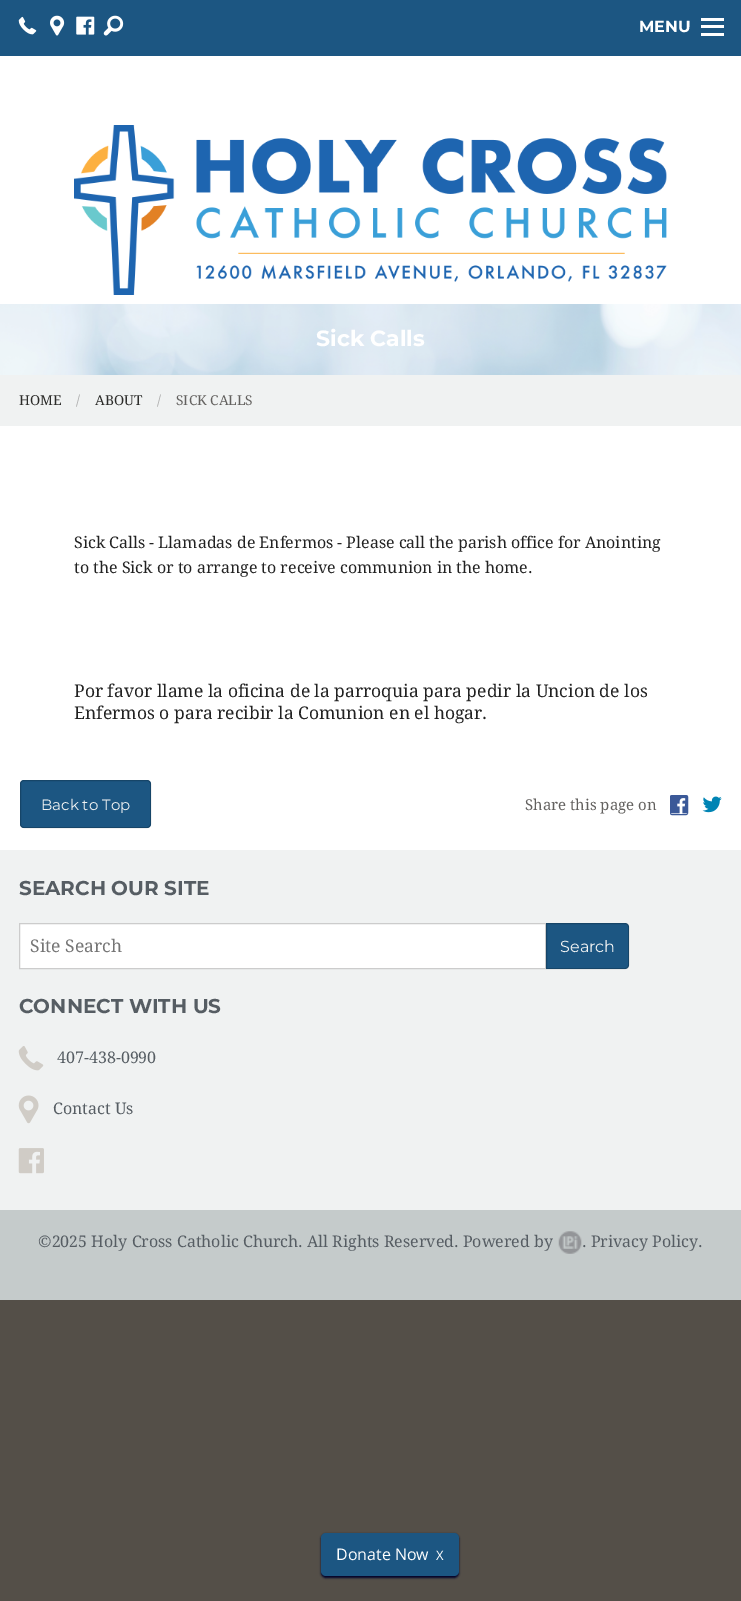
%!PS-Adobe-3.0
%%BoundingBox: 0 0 741 1601
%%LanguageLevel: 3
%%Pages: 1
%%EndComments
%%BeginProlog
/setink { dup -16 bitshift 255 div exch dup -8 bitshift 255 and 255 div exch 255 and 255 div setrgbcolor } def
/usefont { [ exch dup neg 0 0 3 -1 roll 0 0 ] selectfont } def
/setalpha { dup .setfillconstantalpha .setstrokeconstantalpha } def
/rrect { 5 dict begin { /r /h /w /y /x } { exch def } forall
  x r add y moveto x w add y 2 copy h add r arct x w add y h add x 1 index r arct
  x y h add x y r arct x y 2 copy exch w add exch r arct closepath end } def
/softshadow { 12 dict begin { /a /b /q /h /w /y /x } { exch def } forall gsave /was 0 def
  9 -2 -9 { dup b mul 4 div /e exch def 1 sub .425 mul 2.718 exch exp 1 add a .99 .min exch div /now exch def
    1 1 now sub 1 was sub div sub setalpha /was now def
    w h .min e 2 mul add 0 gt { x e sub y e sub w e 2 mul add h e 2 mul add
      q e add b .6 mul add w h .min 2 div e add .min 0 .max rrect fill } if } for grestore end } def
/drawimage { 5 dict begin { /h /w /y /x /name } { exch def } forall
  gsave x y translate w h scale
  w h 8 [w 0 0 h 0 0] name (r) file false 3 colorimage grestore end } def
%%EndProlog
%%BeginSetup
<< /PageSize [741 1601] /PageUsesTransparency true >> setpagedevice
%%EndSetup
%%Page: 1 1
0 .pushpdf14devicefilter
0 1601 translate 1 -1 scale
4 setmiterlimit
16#544F48 setink
0 0 741 1601 rectfill
16#FFFFFF setink
0 56 741 248 rectfill
16#1C5682 setink
0 0 741 56 rectfill
(img1.raw) 18 16 19 19 drawimage
(img2.raw) 50 15 15 21 drawimage
(img3.raw) 76 16 19 19 drawimage
(img4.raw) 103 15 21 21 drawimage
/Montserrat-Bold 16 usefont
16#FFFFFF setink
639 32 moveto (MENU) show
[
    [701 33 23 3 16#FFFFFF]
    [701 25 23 3 16#FFFFFF]
    [701 18 23 3 16#FFFFFF]
] { aload pop setink rectfill } forall
(img5.raw) 74 125 593 170 drawimage
(img6.raw) 0 304 741 71 drawimage
/Montserrat-Bold 22 usefont
316 346 moveto (Sick Calls) show
16#F0F2F2 setink
0 375 741 51 rectfill
/DroidSerif-Regular 13.75 usefont
16#2C2C2A setink
19 405 moveto (HOME) show
16#AAAAAA setink
76 405 moveto (/) show
16#2C2C2A setink
95 405 moveto (ABOUT) show
16#AAAAAA setink
157 405 moveto (/) show
16#63615F setink
176 405 moveto (SICK CALLS) show
16#FFFFFF setink
0 426 741 424 rectfill
/DroidSerif-Regular 16 usefont
16#222222 setink
74 548 moveto (Sick Calls - Llamadas de Enfermos - Please call the parish office for Anointing) show
74 573 moveto (to the Sick or to arrange to receive communion in the home.) show
/DroidSerif-Regular 17.5 usefont
74 697 moveto (Por favor llame la oficina de la parroquia para pedir la Uncion de los) show
74 719 moveto (Enfermos o para recibir la Comunion en el hogar.) show
16#1C5682 setink
20 780 131 48 4 rrect fill
0.2 setalpha
16#000000 setink
20.5 780.5 130 47 3.5 rrect stroke
/Montserrat-Regular 15 usefont
1 setalpha
16#F0F2F2 setink
41 810 moveto (Back to Top) show
/DroidSerif-Regular 15 usefont
16#63615F setink
525 810 moveto (Share this page on) show
16#3B5998 setink
670.5 795.5 17 19 1.5 rrect stroke
(img7.raw) 670 795 18 19 drawimage
(img8.raw) 702 796 20 17 drawimage
16#F0F2F2 setink
0 850 741 360 rectfill
/Montserrat-Bold 20 usefont
16#565D63 setink
19 895 moveto (SEARCH OUR SITE) show
16#FFFFFF setink
19.5 923.5 moveto 545.5 923.5 lineto 545.5 968.5 lineto 19.5 968.5 lineto closepath gsave fill grestore
16#CCCCCC setink
stroke
/DroidSerif-Regular 17.5 usefont
16#757575 setink
30 952 moveto (Site Search) show
16#1C5682 setink
546 923 moveto 625 923 lineto 627 923 629 925 629 927 curveto 629 965 lineto 629 967 627 969 625 969 curveto 546 969 lineto closepath fill
0.2 setalpha
16#000000 setink
546.5 923.5 moveto 625 923.5 lineto 627 923.5 628.5 925 628.5 927 curveto 628.5 965 lineto 628.5 967 627 968.5 625 968.5 curveto 546.5 968.5 lineto closepath stroke
/Montserrat-Regular 16 usefont
1 setalpha
16#F0F2F2 setink
560 952 moveto (Search) show
/Montserrat-Bold 20 usefont
16#565D63 setink
19 1013 moveto (CONNECT WITH US) show
(img9.raw) 18 1046 26 25 drawimage
/DroidSerif-Regular 16 usefont
57 1063 moveto (407-438-0990) show
(img10.raw) 18 1095 21 29 drawimage
53 1114 moveto (Contact Us) show
(img11.raw) 18 1148 26 26 drawimage
16#C5CBCB setink
0 1210 741 90 rectfill
16#565D63 setink
38 1247 moveto (©2025 Holy Cross Catholic Church. All Rights Reserved. Powered by) show
(img12.raw) 558 1231 24 23 drawimage
582 1247 moveto (. Privacy Policy.) show
16#000029 setink
321 1534 138 44 5 1 1 softshadow
16#1C5682 setink
321 1533 138 43 5 rrect fill
/OpenSans-Regular 16 usefont
16#FFFFFF setink
336 1560 moveto (Donate Now) show
/OpenSans-Regular 13 usefont
436 1560 moveto (X) show
.poppdf14devicefilter showpage
%%EOF
